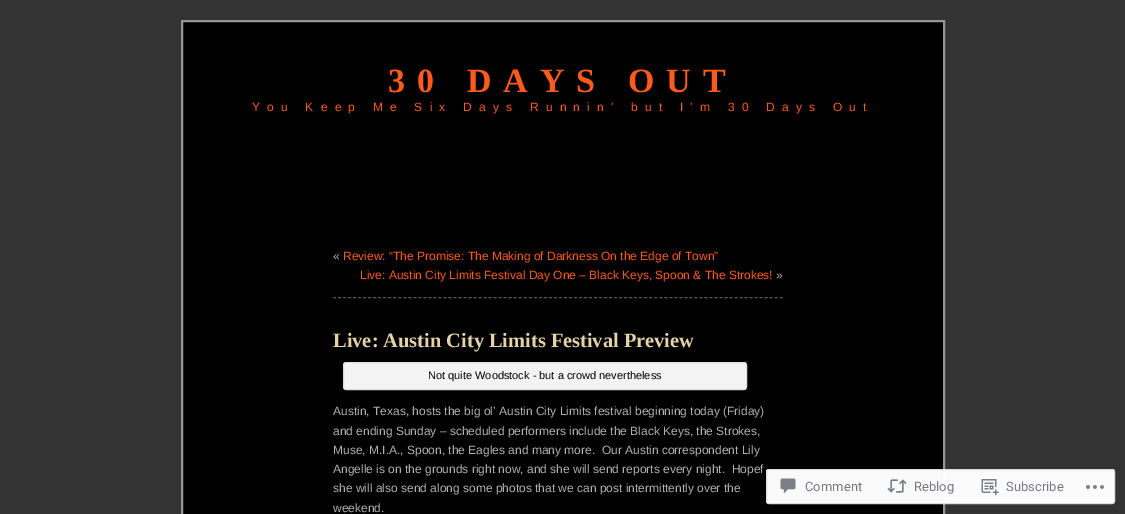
%!PS-Adobe-3.0
%%BoundingBox: 0 0 1125 514
%%LanguageLevel: 3
%%Pages: 1
%%EndComments
%%BeginProlog
/setink { dup -16 bitshift 255 div exch dup -8 bitshift 255 and 255 div exch 255 and 255 div setrgbcolor } def
/usefont { [ exch dup neg 0 0 3 -1 roll 0 0 ] selectfont } def
/setalpha { dup .setfillconstantalpha .setstrokeconstantalpha } def
/rrect { 5 dict begin { /r /h /w /y /x } { exch def } forall
  x r add y moveto x w add y 2 copy h add r arct x w add y h add x 1 index r arct
  x y h add x y r arct x y 2 copy exch w add exch r arct closepath end } def
/drawimage { 5 dict begin { /h /w /y /x /name } { exch def } forall
  gsave x y translate w h scale
  w h 8 [w 0 0 h 0 0] name (r) file false 3 colorimage grestore end } def
%%EndProlog
%%BeginSetup
<< /PageSize [1125 514] /PageUsesTransparency true >> setpagedevice
%%EndSetup
%%Page: 1 1
0 .pushpdf14devicefilter
0 514 translate 1 -1 scale
4 setmiterlimit
16#333333 setink
0 0 1125 514 rectfill
16#000000 setink
182 21 moveto 944 21 lineto 944 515 lineto 182 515 lineto closepath gsave fill grestore
16#959596 setink
2 setlinewidth
stroke
/LiberationSerif-Bold 34 usefont
16#FD5A1E setink
388 92 moveto 12 0 (30 DAYS OUT) ashow
/LiberationSans-Regular 12 usefont
252 111 moveto 7.2 0 (You Keep Me Six Days Runnin' but I'm 30 Days Out) ashow
16#B0B0B0 setink
333 260 moveto («) show
16#FD5A1E setink
343 260 moveto (Review: “The Promise: The Making of Darkness On the Edge of Town”) show
360 279 moveto (Live: Austin City Limits Festival Day One – Black Keys, Spoon & The Strokes!) show
16#B0B0B0 setink
776 279 moveto (») show
16#555555 setink
1 setlinewidth
[3 2.02] 0 setdash
333 297.5 moveto 783 297.5 lineto stroke
/LiberationSerif-Bold 20.4 usefont
16#E4D3A6 setink
333 347 moveto (Live: Austin City Limits Festival Preview) show
16#F3F3F3 setink
343.5 362.5 403 27 2.5 rrect gsave fill grestore
16#DDDDDD setink
[] 0 setdash
stroke
/LiberationSans-Regular 11 usefont
16#000000 setink
428 379 moveto (Not quite Woodstock - but a crowd nevertheless) show
/LiberationSans-Regular 12 usefont
16#B0B0B0 setink
[
    [(Austin, Texas, hosts the big ol’ Austin City Limits festival beginning today \(Friday\)) 333 415]
    [(and ending Sunday – scheduled performers include the Black Keys, the Strokes,) 333 435]
    [(Muse, M.I.A., Spoon, the Eagles and many more.  Our Austin correspondent Lily) 333 454]
    [(Angelle is on the grounds right now, and she will send reports every night.  Hopef) 333 473]
    [(she will also send along some photos that we can post intermittently over the) 333 492]
    [(weekend.) 333 512]
] { aload pop moveto show } forall
0.98 setalpha
16#FFFFFF setink
766 469 349 35 3 rrect fill
16#DCDCDE setink
766.5 469.5 348 34 2.5 rrect stroke
1 setalpha
(img1.raw) 780 478 16 16 drawimage
/Roboto-Regular 13 usefont
16#767A7F setink
805 491 moveto (Comment) show
(img2.raw) 887 479 20 14 drawimage
914 491 moveto (Reblog) show
(img3.raw) 981 479 18 17 drawimage
1006 491 moveto (Subscribe) show
(img4.raw) 1086 485 18 4 drawimage
.poppdf14devicefilter showpage
%%EOF
